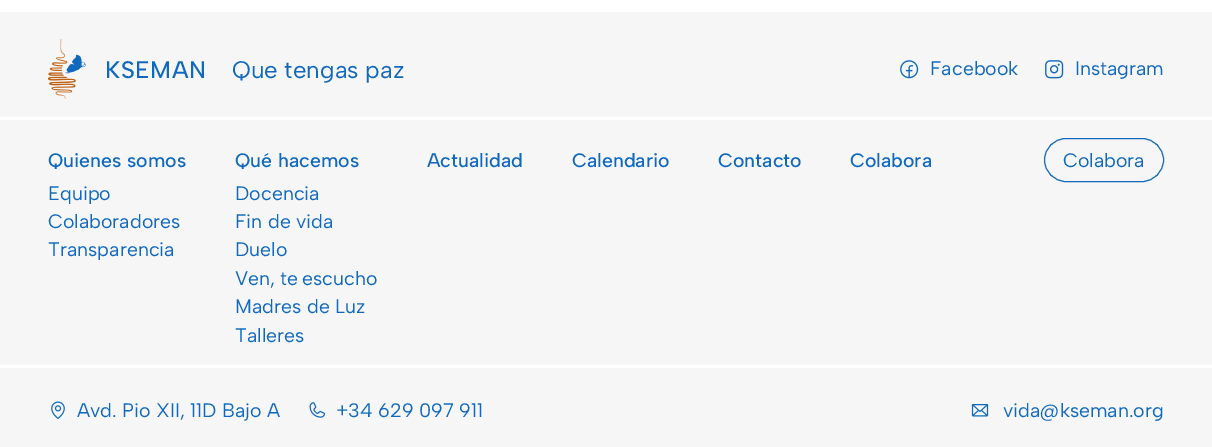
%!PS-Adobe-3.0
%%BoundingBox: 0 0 1212 447
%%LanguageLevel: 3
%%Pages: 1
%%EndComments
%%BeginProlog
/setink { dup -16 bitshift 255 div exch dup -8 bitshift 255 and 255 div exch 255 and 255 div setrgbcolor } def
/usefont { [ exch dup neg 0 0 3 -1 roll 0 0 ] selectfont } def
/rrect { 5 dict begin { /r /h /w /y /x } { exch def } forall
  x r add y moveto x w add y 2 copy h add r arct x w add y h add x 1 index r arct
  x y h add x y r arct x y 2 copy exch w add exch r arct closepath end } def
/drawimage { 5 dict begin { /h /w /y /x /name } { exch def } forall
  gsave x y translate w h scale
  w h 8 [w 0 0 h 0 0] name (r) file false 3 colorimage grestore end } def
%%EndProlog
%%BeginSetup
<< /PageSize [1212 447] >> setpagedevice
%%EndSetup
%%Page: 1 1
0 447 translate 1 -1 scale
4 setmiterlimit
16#FFFFFF setink
0 0 1212 447 rectfill
16#F6F6F6 setink
0 12 1212 435 rectfill
(img1.raw) 48 39 38 60 drawimage
/AlbertSans-Medium 24 usefont
16#1169BE setink
105 78 moveto 0.5 0 (KSEMAN) ashow
/AlbertSans-Regular 24 usefont
232 78 moveto (Que tengas paz) show
(img2.raw) 900 60 19 19 drawimage
/AlbertSans-Regular 19.5 usefont
930 75 moveto (Facebook) show
(img3.raw) 1045 60 19 19 drawimage
1075 75 moveto (Instagram) show
16#FFFFFF setink
0 117 1212 3 rectfill
/AlbertSans-Medium 19.5 usefont
16#1169BE setink
48 167 moveto (Quienes somos) show
/AlbertSans-Regular 19.5 usefont
[
    [(Equipo) 48 200]
    [(Colaboradores) 48 228]
    [(Transparencia) 48 256]
] { aload pop moveto show } forall
/AlbertSans-Medium 19.5 usefont
235 167 moveto (Qué hacemos) show
/AlbertSans-Regular 19.5 usefont
[
    [(Docencia) 235 200]
    [(Fin de vida) 235 228]
    [(Duelo) 235 256]
] { aload pop moveto show } forall
235 285 moveto -1 0 32 (Ven, te escucho) widthshow
235 313 moveto (Madres de Luz) show
235 342 moveto (Talleres) show
/AlbertSans-Medium 19.5 usefont
[
    [(Actualidad) 427 167]
    [(Calendario) 572 167]
    [(Contacto) 718 167]
    [(Colabora) 850 167]
] { aload pop moveto show } forall
1044.5 138.5 119 43 21.5 rrect stroke
/AlbertSans-Regular 19.5 usefont
1063 167 moveto (Colabora) show
16#FFFFFF setink
0 365 1212 3 rectfill
(img4.raw) 51 401 14 18 drawimage
16#1169BE setink
77 417 moveto (Avd. Pio XII, 11D Bajo A) show
(img5.raw) 309 402 17 16 drawimage
336 417 moveto (+34 629 097 911) show
(img6.raw) 971 404 18 13 drawimage
1003 417 moveto (vida@kseman.org) show
showpage
%%EOF
